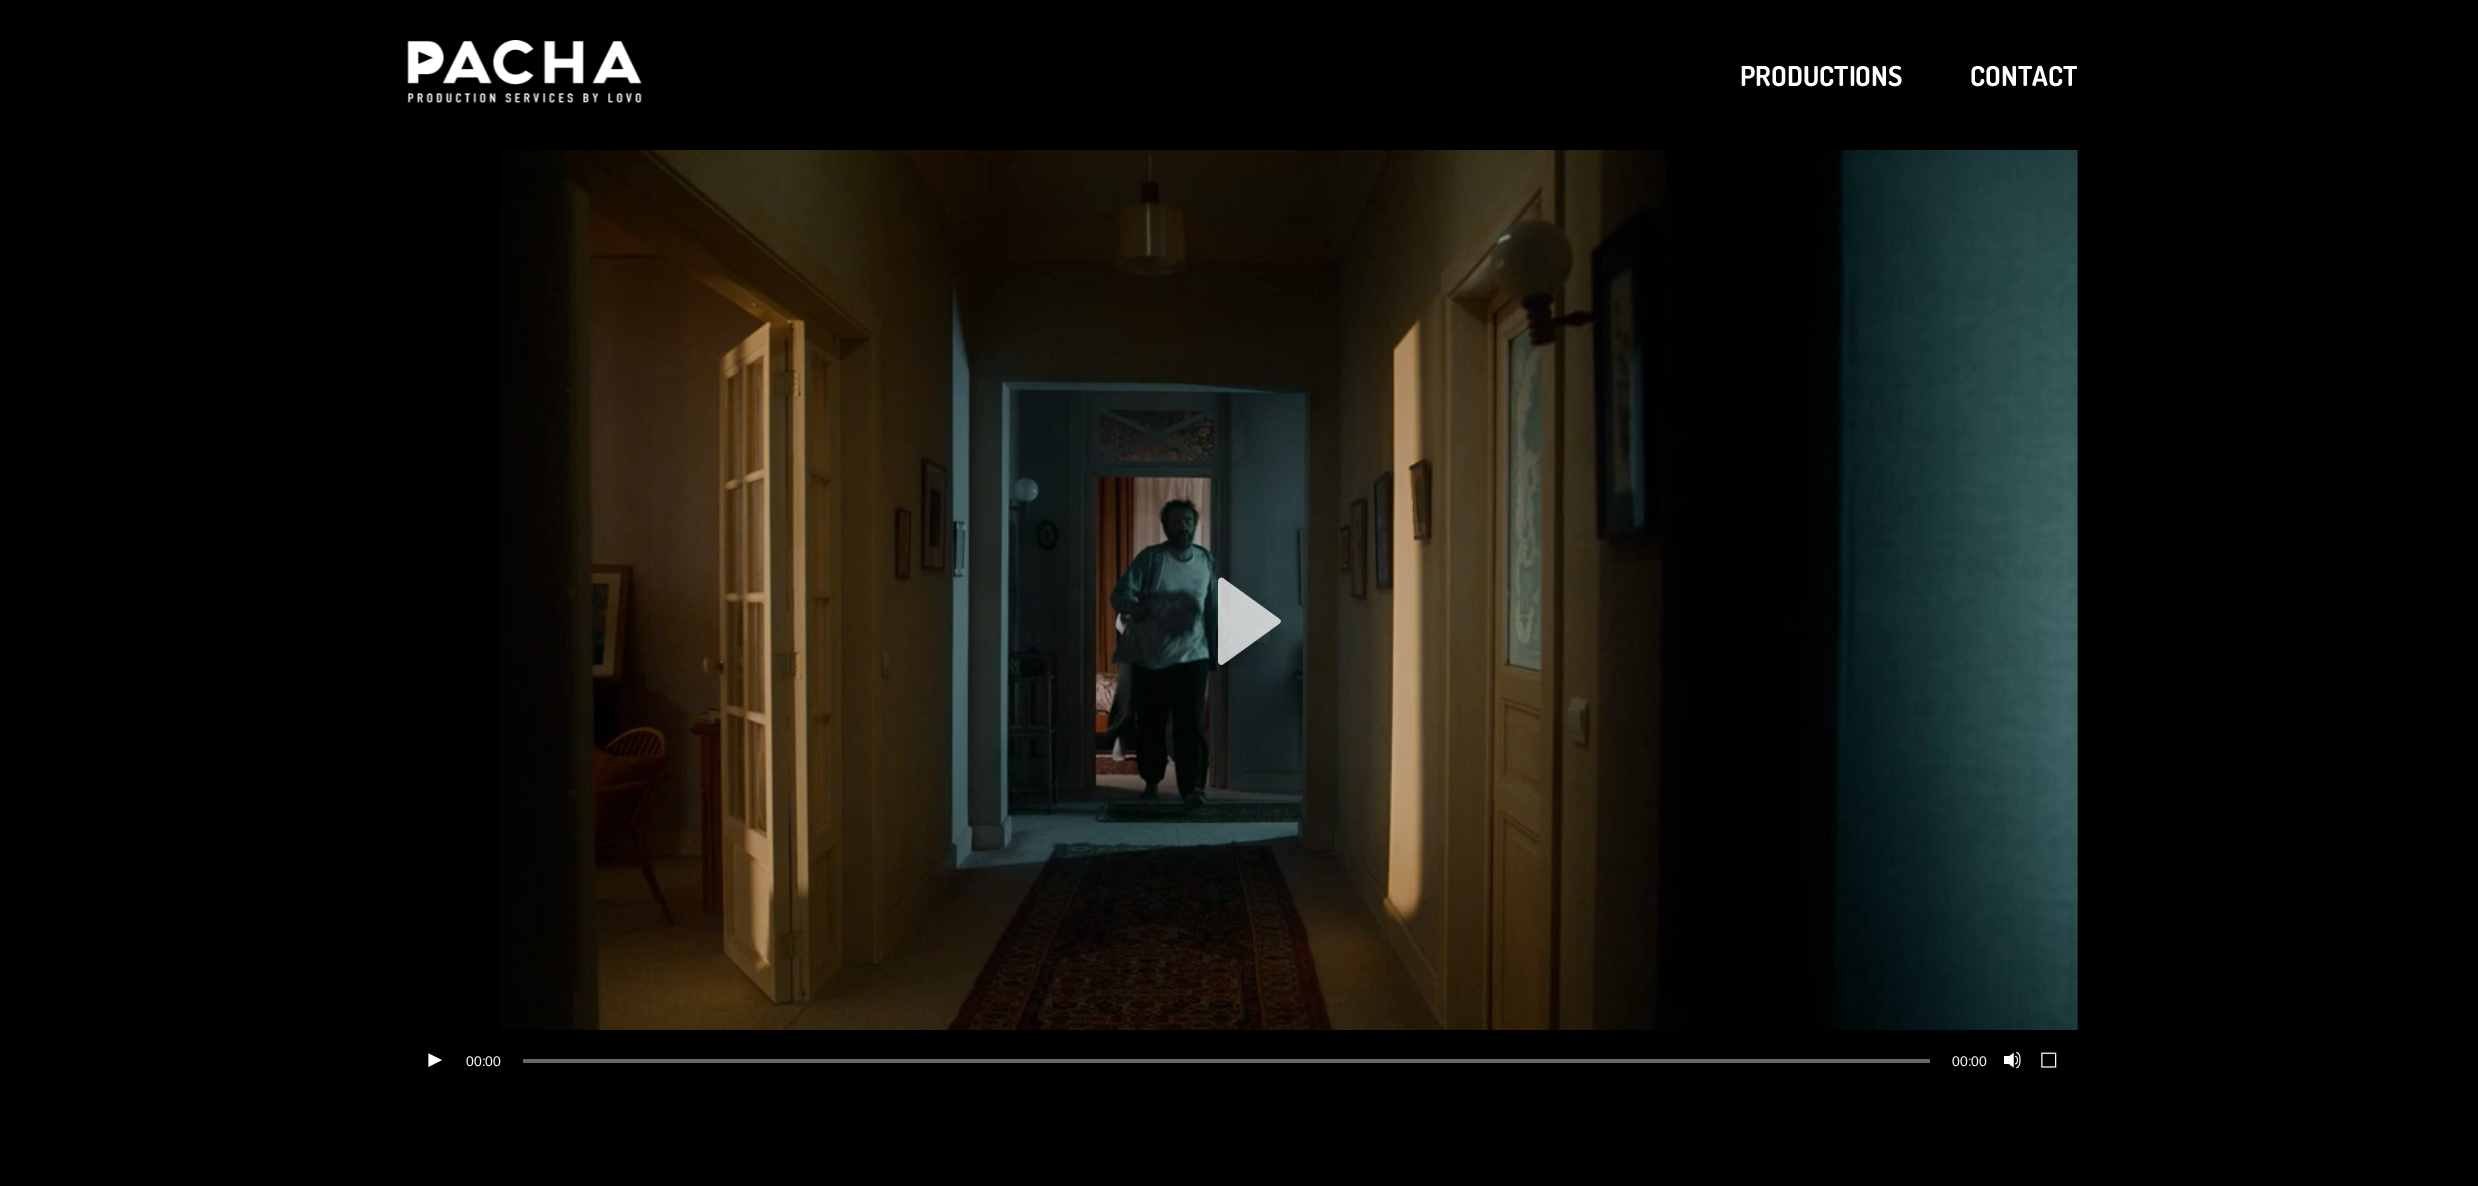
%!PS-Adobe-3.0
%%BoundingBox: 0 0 2478 1186
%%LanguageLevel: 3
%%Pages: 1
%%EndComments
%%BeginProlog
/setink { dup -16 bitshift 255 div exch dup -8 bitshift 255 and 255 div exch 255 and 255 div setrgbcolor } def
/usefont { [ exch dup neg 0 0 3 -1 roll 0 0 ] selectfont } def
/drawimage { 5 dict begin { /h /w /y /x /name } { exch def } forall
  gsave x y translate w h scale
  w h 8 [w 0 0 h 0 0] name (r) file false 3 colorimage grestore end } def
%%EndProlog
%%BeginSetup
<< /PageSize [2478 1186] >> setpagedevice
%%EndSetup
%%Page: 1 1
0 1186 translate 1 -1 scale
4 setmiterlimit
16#000000 setink
0 0 2478 1186 rectfill
(img1.raw) 407 40 235 63 drawimage
/Dosis-Bold 27.5 usefont
16#FFFFFF setink
1740 86 moveto (PRODUCTIONS) show
1970 86 moveto (CONTACT) show
(img2.raw) 500 150 1578 880 drawimage
(img3.raw) 574 150 1504 880 drawimage
(img4.raw) 1205 577 76 90 drawimage
(img5.raw) 428 1053 14 14 drawimage
/LiberationSans-Regular 14 usefont
466 1066 moveto (00:00) show
16#666666 setink
523 1059 1407 4 rectfill
16#FFFFFF setink
1952 1066 moveto (00:00) show
(img6.raw) 2004 1052 17 17 drawimage
(img7.raw) 2041 1052 16 16 drawimage
showpage
%%EOF
